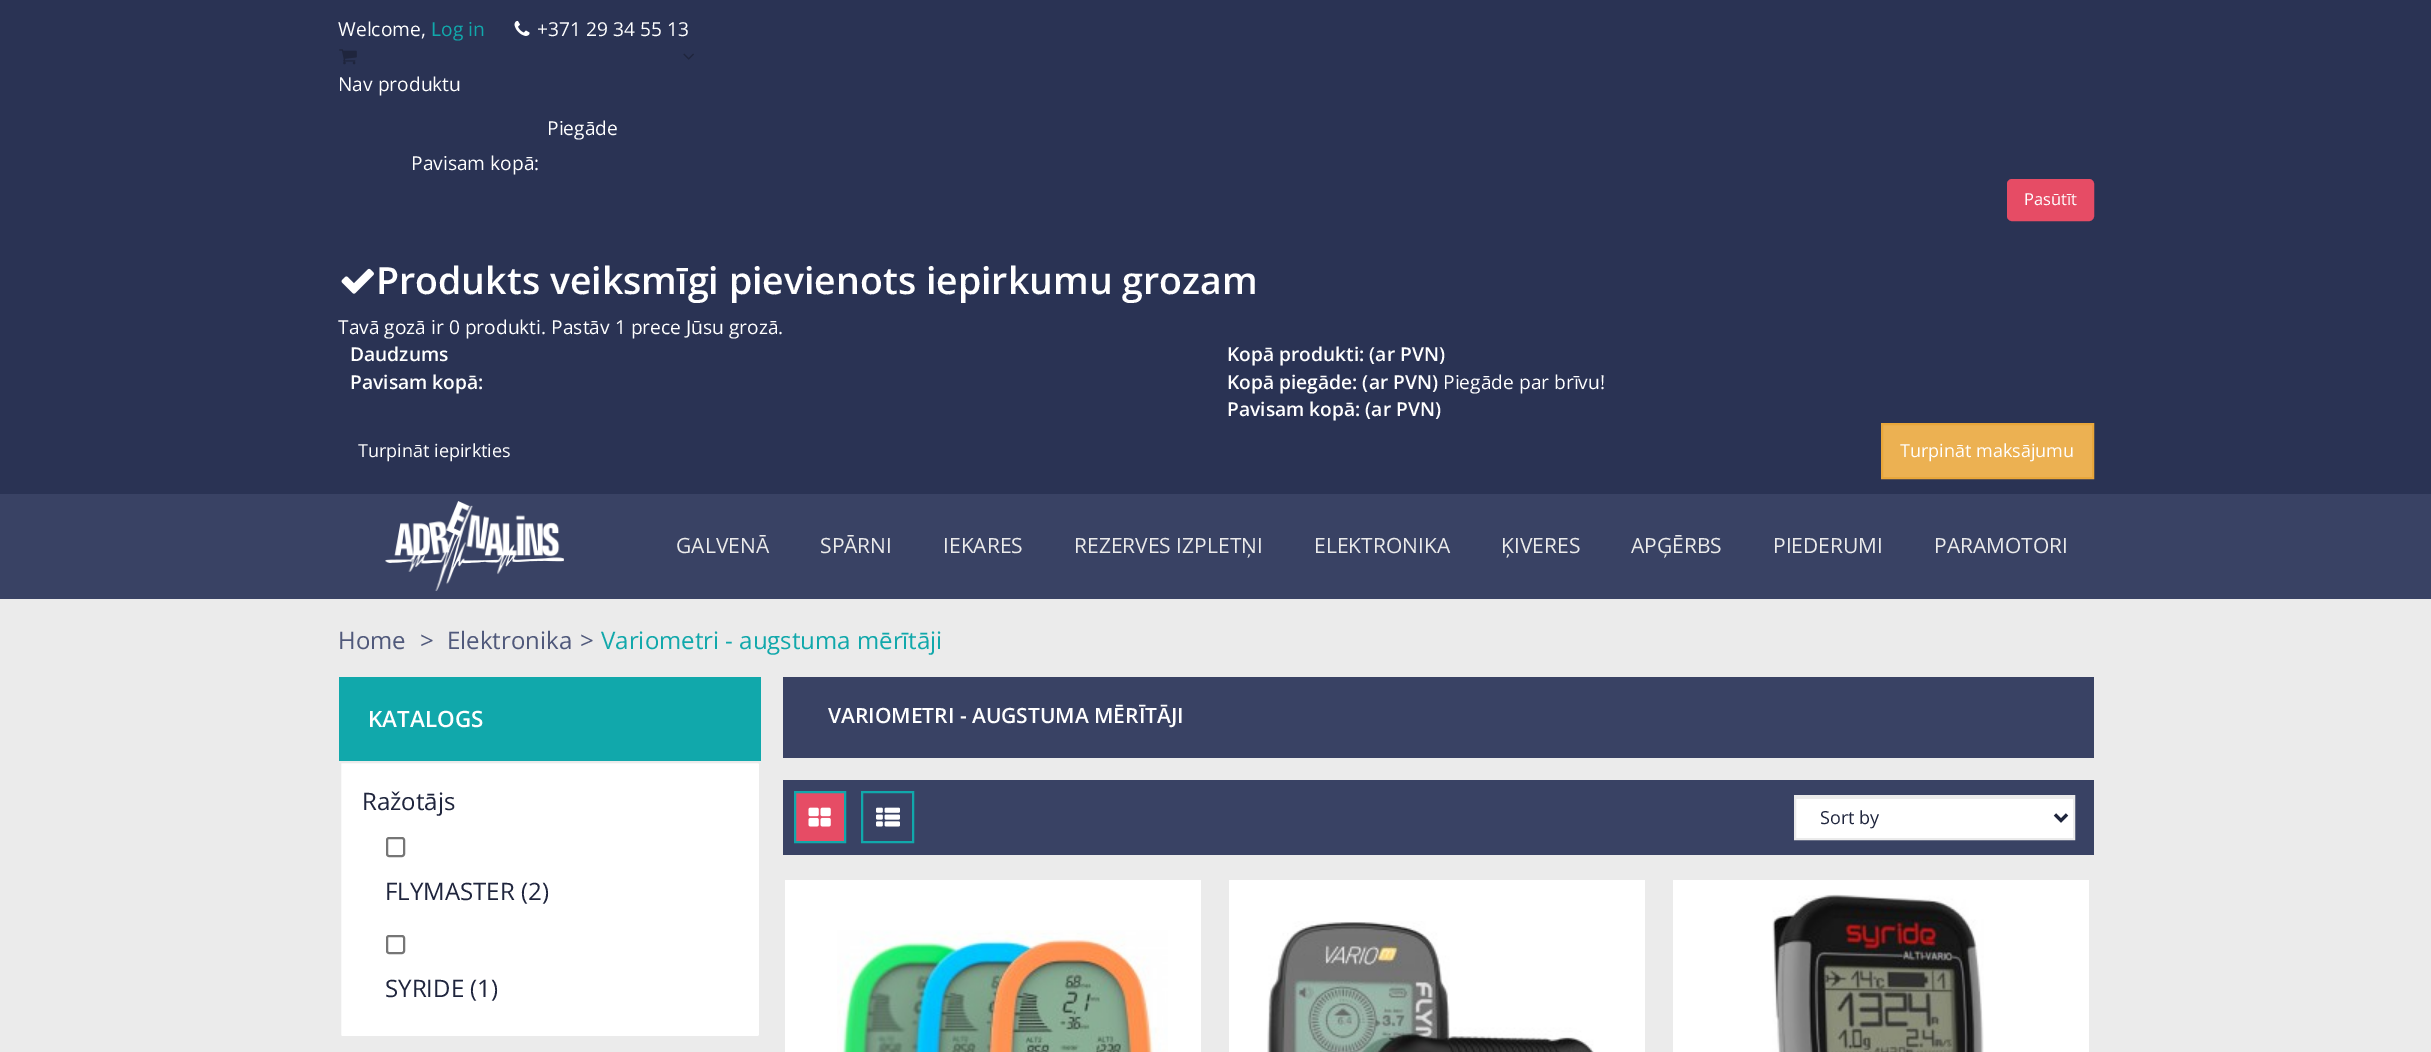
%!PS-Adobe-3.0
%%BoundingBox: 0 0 2431 1052
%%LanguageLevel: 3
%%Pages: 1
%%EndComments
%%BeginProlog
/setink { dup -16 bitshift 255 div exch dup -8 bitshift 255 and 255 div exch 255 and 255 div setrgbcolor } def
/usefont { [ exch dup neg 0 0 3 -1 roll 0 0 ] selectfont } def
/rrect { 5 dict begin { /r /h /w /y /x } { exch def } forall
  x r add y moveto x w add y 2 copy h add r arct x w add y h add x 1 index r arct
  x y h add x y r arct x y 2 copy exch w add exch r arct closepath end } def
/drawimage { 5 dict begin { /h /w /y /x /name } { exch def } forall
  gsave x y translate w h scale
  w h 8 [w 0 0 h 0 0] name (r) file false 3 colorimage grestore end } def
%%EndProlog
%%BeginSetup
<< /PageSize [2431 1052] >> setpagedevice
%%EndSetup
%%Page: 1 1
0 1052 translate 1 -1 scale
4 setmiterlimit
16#EBEBEB setink
0 0 2431 1052 rectfill
16#2A3354 setink
0 0 2431 494 rectfill
/OpenSans-Regular 19.2 usefont
16#FFFFFF setink
338 36 moveto (Welcome,) show
16#11A8AB setink
431 36 moveto (Log in) show
(img1.raw) 514 20 16 16 drawimage
16#FFFFFF setink
537 36 moveto (+371 29 34 55 13) show
(img2.raw) 339 49 18 16 drawimage
(img3.raw) 683 53 11 7 drawimage
[
    [(Nav produktu) 338 91]
    [(Piegāde) 547 135]
    [(Pavisam kopā:) 411 170]
] { aload pop moveto show } forall
16#E64C65 setink
2008 180 85 40 4 rrect gsave fill grestore
2 setlinewidth
stroke
/OpenSans-Regular 16.5 usefont
16#FFFFFF setink
2024 205 moveto (Pasūtīt) show
(img4.raw) 341 268 33 26 drawimage
/OpenSans-SemiBold 37.5 usefont
376 294 moveto (Produkts veiksmīgi pievienots iepirkumu grozam) show
/OpenSans-Regular 19.2 usefont
338 334 moveto (Tavā gozā ir 0 produkti. Pastāv 1 prece Jūsu grozā.) show
/OpenSans-SemiBold 19.2 usefont
[
    [(Daudzums) 350 361]
    [(Pavisam kopā:) 350 389]
    [(Kopā produkti: \(ar PVN\)) 1227 361]
    [(Kopā piegāde: \(ar PVN\)) 1227 389]
] { aload pop moveto show } forall
/OpenSans-Regular 19.2 usefont
1443 389 moveto (Piegāde par brīvu!) show
/OpenSans-SemiBold 19.2 usefont
1227 416 moveto (Pavisam kopā: \(ar PVN\)) show
/OpenSans-Regular 18 usefont
358 457 moveto (Turpināt iepirkties) show
16#ECB152 setink
1882 424 moveto 2093 424 lineto 2093 478 lineto 1882 478 lineto closepath gsave fill grestore
16#E9A73B setink
stroke
16#FFFFFF setink
1900 457 moveto (Turpināt maksājumu) show
16#394264 setink
0 494 2431 105 rectfill
(img5.raw) 385 501 179 90 drawimage
/OpenSans-Regular 21 usefont
16#EBEBEB setink
[
    [(GALVENĀ) 676 553]
    [(SPĀRNI) 820 553]
    [(IEKARES) 943 553]
    [(REZERVES IZPLETŅI) 1074 553]
    [(ELEKTRONIKA) 1314 553]
    [(ĶIVERES) 1501 553]
    [(APĢĒRBS) 1631 553]
    [(PIEDERUMI) 1773 553]
    [(PARAMOTORI) 1934 553]
] { aload pop moveto show } forall
/OpenSans-Regular 24 usefont
16#50597B setink
[
    [(Home) 338 649]
    [(>) 420 649]
    [(Elektronika) 447 649]
    [(>) 580 649]
] { aload pop moveto show } forall
16#11A8AB setink
601 649 moveto (Variometri - augstuma mērītāji) show
339 677 422 84 rectfill
/OpenSans-SemiBold 22.5 usefont
16#FFFFFF setink
368 727 moveto (KATALOGS) show
340 762 420 275 2 rrect gsave fill grestore
16#EBEBEB setink
stroke
/OpenSans-Regular 24 usefont
16#1F253D setink
362 810 moveto (Ražotājs) show
16#767676 setink
387 838 17 18 2 rrect stroke
16#1F253D setink
385 900 moveto (FLYMASTER \(2\)) show
16#767676 setink
387 936 17 17 2 rrect stroke
16#1F253D setink
385 997 moveto (SYRIDE \(1\)) show
16#394264 setink
783 677 1311 81 rectfill
/OpenSans-SemiBold 21 usefont
16#FFFFFF setink
828 723 moveto (VARIOMETRI - AUGSTUMA MĒRĪTĀJI) show
16#394264 setink
783 780 1311 75 rectfill
16#E64C65 setink
795 792 moveto 845 792 lineto 845 842 lineto 795 842 lineto closepath gsave fill grestore
16#11A8AB setink
stroke
(img6.raw) 808 807 23 20 drawimage
862 792 51 50 rectstroke
(img7.raw) 876 807 24 20 drawimage
16#FFFFFF setink
1796 799 277 39 rectfill
16#ECECEC setink
1796 797 277 2 rectfill
16#EBEBEB setink
1795 796 279 43 rectstroke
16#1F253D setink
3 setlinewidth
2055 814.5 moveto 2061 820.5 lineto 2067 814.5 lineto stroke
/OpenSans-Regular 18 usefont
1820 824 moveto (Sort by) show
16#FFFFFF setink
785 880 416 172 rectfill
(img8.raw) 837 930 331 122 drawimage
1229 880 416 172 rectfill
(img9.raw) 1267 921 327 131 drawimage
1673 880 416 172 rectfill
(img10.raw) 1772 894 212 158 drawimage
showpage
%%EOF
